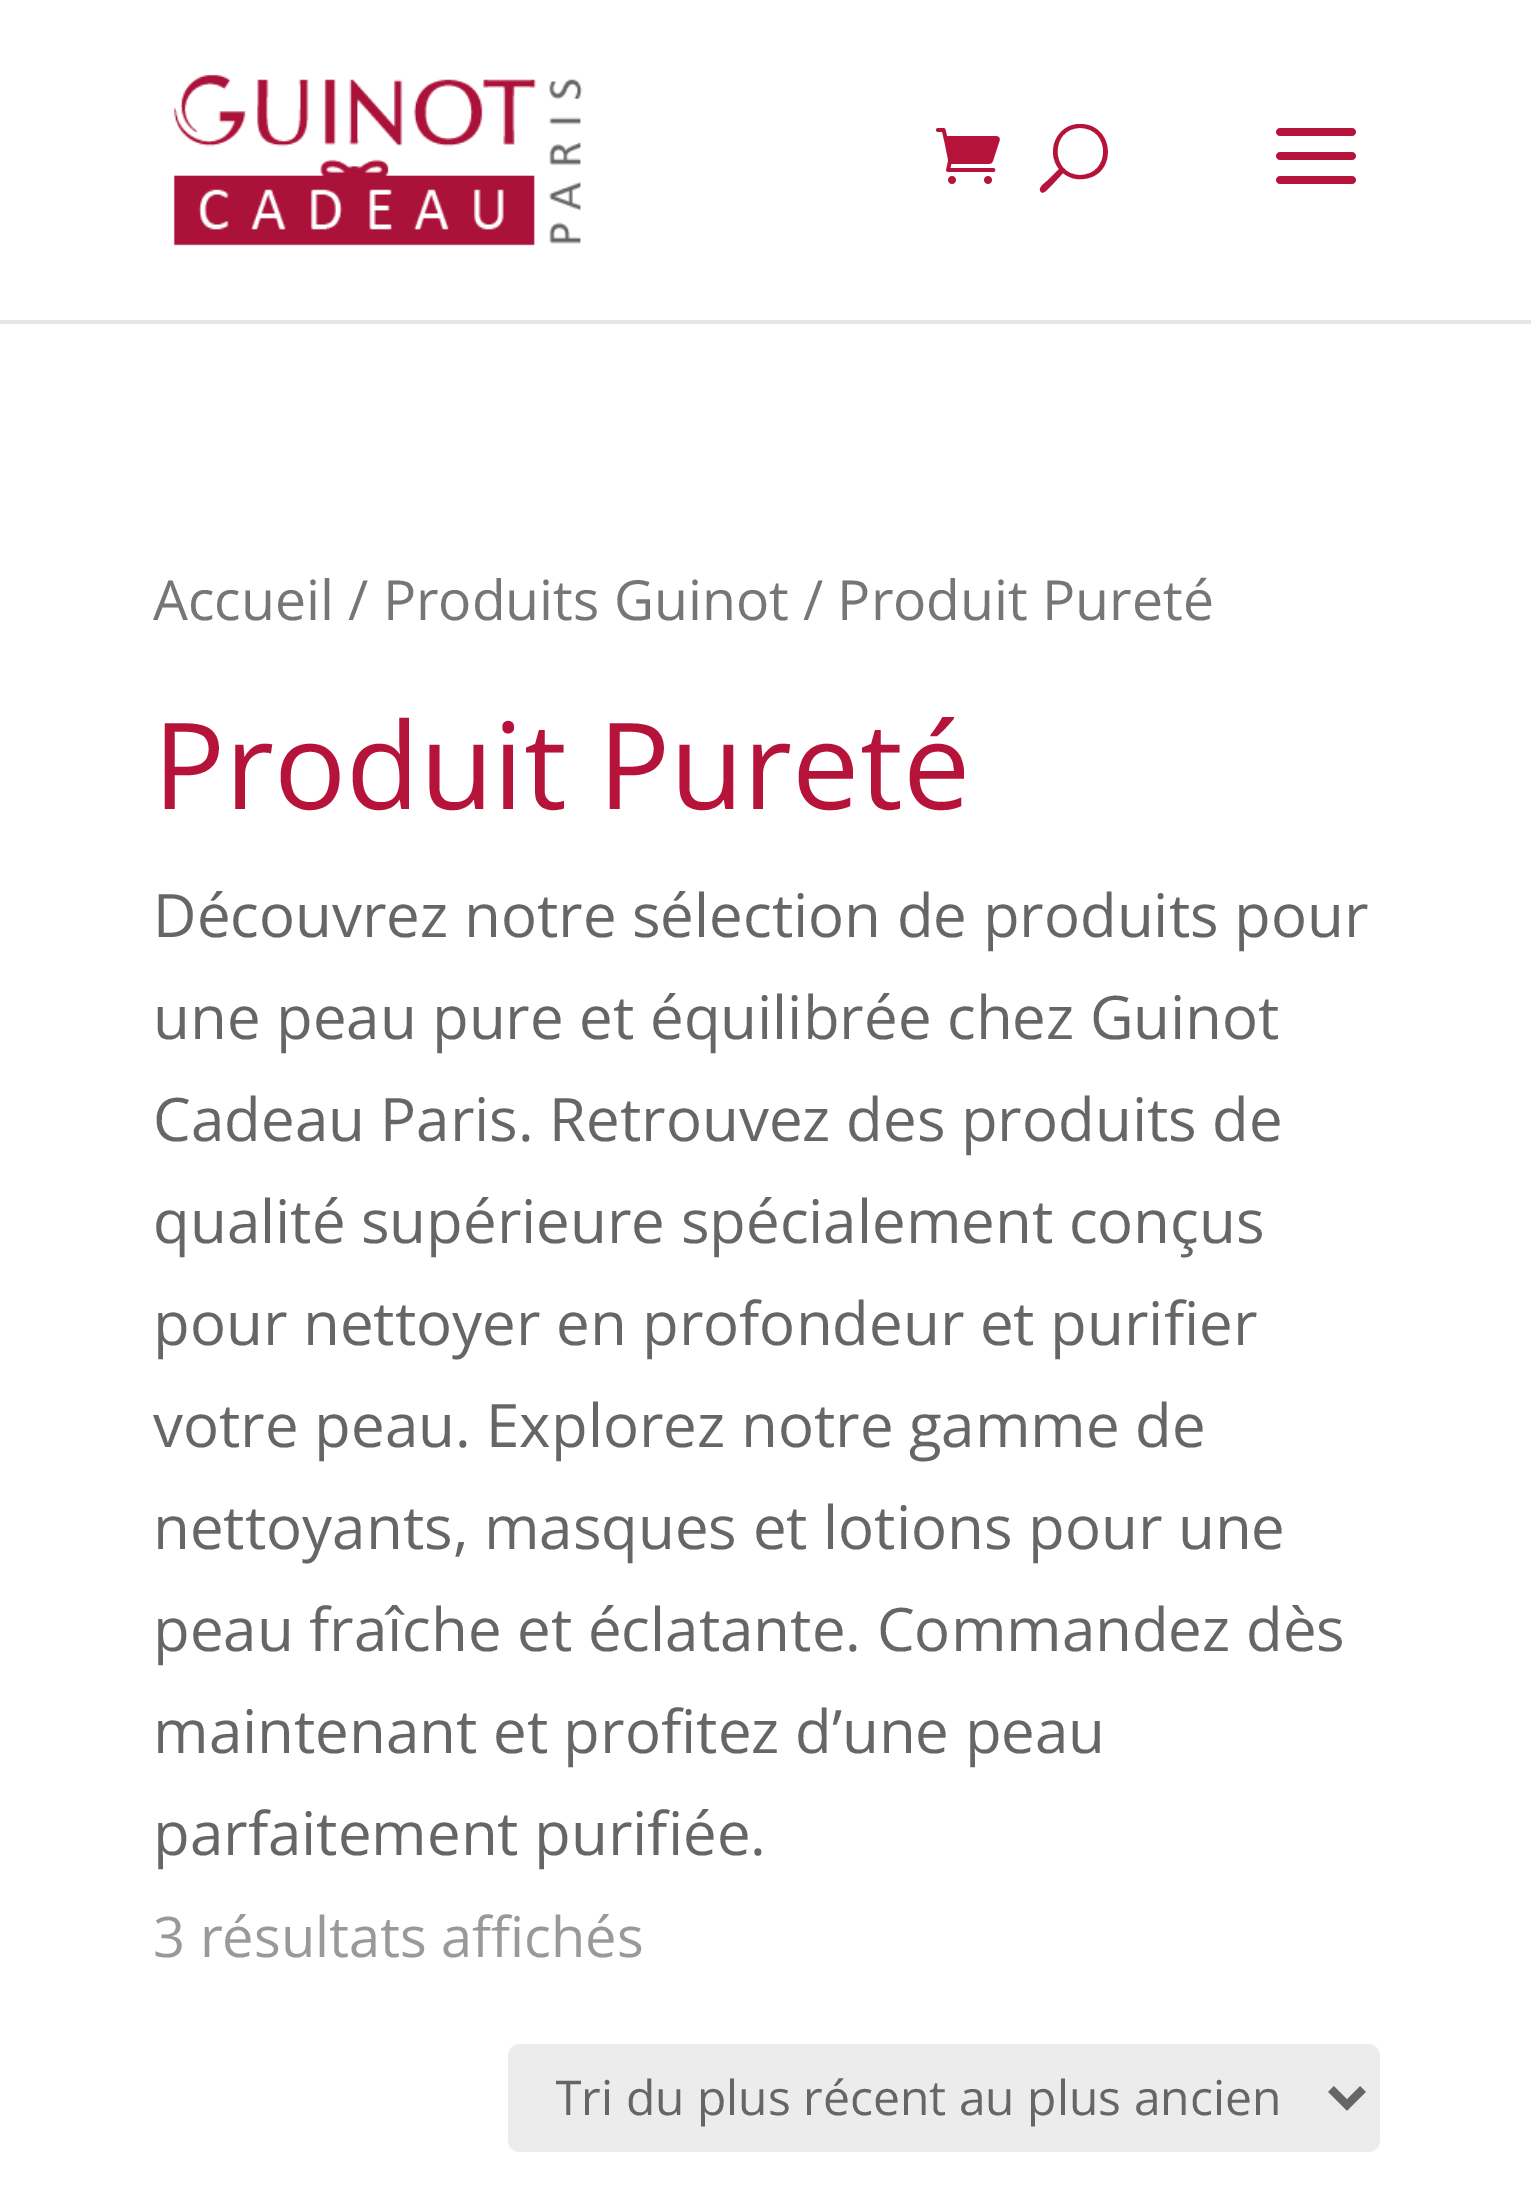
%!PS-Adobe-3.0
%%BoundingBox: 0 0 1531 2194
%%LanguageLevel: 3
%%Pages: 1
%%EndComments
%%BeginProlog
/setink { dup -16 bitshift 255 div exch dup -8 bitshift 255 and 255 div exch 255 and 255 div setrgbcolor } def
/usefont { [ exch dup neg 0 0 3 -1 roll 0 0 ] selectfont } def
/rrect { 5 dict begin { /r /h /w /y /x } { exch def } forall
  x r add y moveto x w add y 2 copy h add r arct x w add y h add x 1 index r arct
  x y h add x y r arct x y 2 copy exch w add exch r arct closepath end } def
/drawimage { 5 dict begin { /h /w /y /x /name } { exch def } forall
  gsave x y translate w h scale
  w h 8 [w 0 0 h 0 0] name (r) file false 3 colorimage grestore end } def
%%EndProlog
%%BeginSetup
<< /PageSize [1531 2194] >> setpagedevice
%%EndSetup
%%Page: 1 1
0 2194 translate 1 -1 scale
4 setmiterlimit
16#FFFFFF setink
0 0 1531 2194 rectfill
16#E6E6E6 setink
0 320 1531 4 rectfill
(img1.raw) 173 74 410 172 drawimage
(img2.raw) 935 128 65 56 drawimage
16#B6133A setink
1080 124 moveto 1057 124 1045 151 1059 169 curveto 1047 181 lineto 1045 183 1037 188 1041 192 curveto 1044 195 1049 187 1051 186 curveto 1063 173 lineto 1069 178 1076 180 1083 179 curveto 1118 176 1115 124 1080 124 curveto closepath 1080 175 moveto 1050 175 1050 128 1080 128 curveto 1111 128 1111 175 1080 175 curveto closepath fill
(img3.raw) 1276 128 80 56 drawimage
/OpenSans-Regular 55.25 usefont
16#767676 setink
153 620 moveto (Accueil / Produits Guinot / Produit Pureté) show
/OpenSans-Regular 120 usefont
16#B6133A setink
153 809 moveto (Produit Pureté) show
/OpenSans-Regular 60 usefont
16#666666 setink
[
    [(Découvrez notre sélection de produits pour) 153 937]
    [(une peau pure et équilibrée chez Guinot) 153 1039]
    [(Cadeau Paris. Retrouvez des produits de) 153 1141]
    [(qualité supérieure spécialement conçus) 153 1243]
    [(pour nettoyer en profondeur et purifier) 153 1345]
    [(votre peau. Explorez notre gamme de) 153 1447]
    [(nettoyants, masques et lotions pour une) 153 1549]
    [(peau fraîche et éclatante. Commandez dès) 153 1651]
    [(maintenant et profitez d’une peau) 153 1753]
    [(parfaitement purifiée.) 153 1855]
] { aload pop moveto show } forall
/OpenSans-Regular 56 usefont
16#999999 setink
153 1957 moveto (3 résultats affichés) show
16#ECECEC setink
508 2044 872 108 12 rrect fill
16#666666 setink
8 setlinewidth
1331 2089 moveto 1347 2105 lineto 1363 2089 lineto stroke
gsave
556 2060 728 76 rectclip
/OpenSans-Regular 48 usefont
555 2115 moveto (Tri du plus récent au plus ancien) show
grestore
showpage
%%EOF
